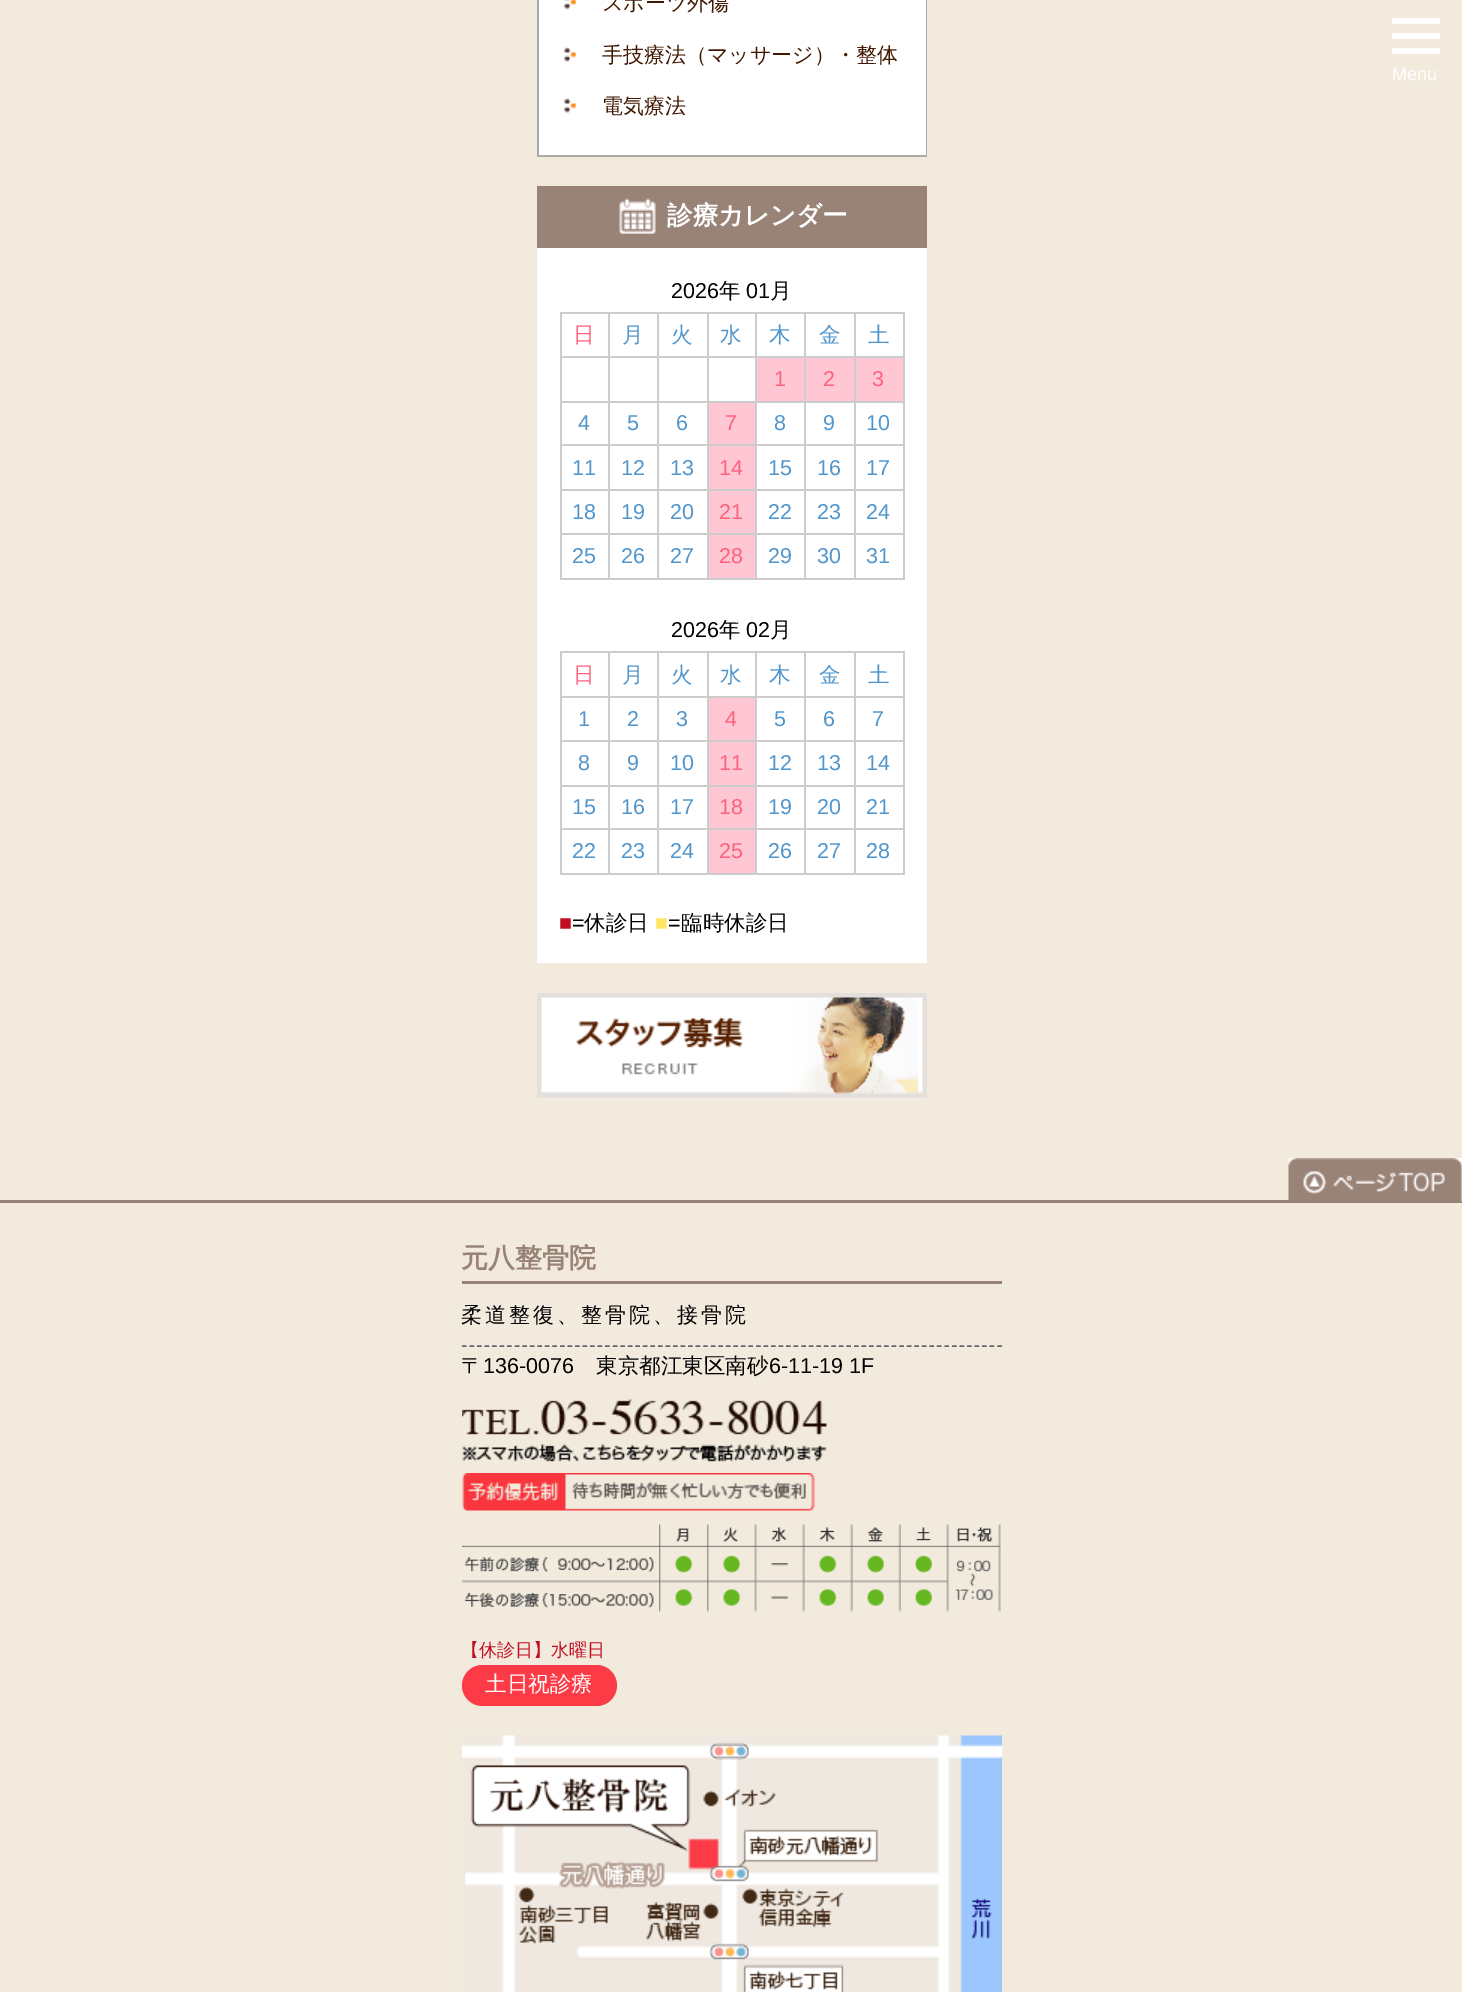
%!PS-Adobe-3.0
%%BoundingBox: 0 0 1462 1992
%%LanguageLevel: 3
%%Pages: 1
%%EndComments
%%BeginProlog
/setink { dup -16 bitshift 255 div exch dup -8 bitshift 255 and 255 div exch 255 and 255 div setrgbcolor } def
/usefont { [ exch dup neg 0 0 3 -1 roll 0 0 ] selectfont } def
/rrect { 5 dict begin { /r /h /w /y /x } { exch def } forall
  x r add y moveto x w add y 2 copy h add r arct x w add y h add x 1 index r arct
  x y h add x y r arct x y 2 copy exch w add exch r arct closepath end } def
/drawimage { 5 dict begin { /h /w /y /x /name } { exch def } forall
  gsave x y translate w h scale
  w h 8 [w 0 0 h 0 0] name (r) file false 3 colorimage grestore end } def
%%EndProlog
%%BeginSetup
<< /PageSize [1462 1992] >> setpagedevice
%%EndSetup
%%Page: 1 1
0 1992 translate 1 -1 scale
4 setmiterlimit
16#F1EADD setink
0 0 1462 1992 rectfill
[
    [539 0 387 155 16#FFFFFF]
    [926 0 1 156 16#AAAAAA]
    [537 155 390 2 16#AAAAAA]
    [537 0 2 156 16#AAAAAA]
] { aload pop setink rectfill } forall
(img1.raw) 564 0 13 10 drawimage
/WenQuanYiZenHei-Medium 21 usefont
16#411802 setink
602 10 moveto (スポーツ外傷) show
(img2.raw) 564 47 13 15 drawimage
602 62 moveto (手技療法（マッサージ）・整体) show
(img2.raw) 564 98 13 15 drawimage
602 113 moveto (電気療法) show
16#FFFFFF setink
537 248 390 715 rectfill
16#998377 setink
537 186 390 62 rectfill
(img3.raw) 619 198 37 36 drawimage
/WenQuanYiZenHei-Bold 25.5 usefont
16#FFFFFF setink
667 224 moveto (診療カレンダー) show
/LiberationSans-Regular 21.5 usefont
16#000000 setink
671 298 moveto (2026) show
/WenQuanYiZenHei-Medium 21.5 usefont
719 298 moveto (年) show
/LiberationSans-Regular 21.5 usefont
746 298 moveto (01) show
/WenQuanYiZenHei-Medium 21.5 usefont
770 298 moveto (月) show
[
    [854 312 51 2 16#CCCCCC]
    [854 356 51 2 16#CCCCCC]
    [854 401 51 2 16#CCCCCC]
    [854 444 51 2 16#CCCCCC]
    [854 489 51 2 16#CCCCCC]
    [854 533 51 2 16#CCCCCC]
    [903 533 2 46 16#CCCCCC]
    [854 578 51 2 16#CCCCCC]
    [854 533 2 46 16#CCCCCC]
    [804 533 51 2 16#CCCCCC]
    [854 489 2 45 16#CCCCCC]
    [804 489 51 2 16#CCCCCC]
    [854 444 2 47 16#CCCCCC]
    [804 444 51 2 16#CCCCCC]
    [854 401 2 45 16#CCCCCC]
    [804 401 51 2 16#CCCCCC]
    [854 356 2 46 16#CCCCCC]
    [804 356 51 2 16#CCCCCC]
    [854 312 2 45 16#CCCCCC]
    [804 312 51 2 16#CCCCCC]
    [804 578 51 2 16#CCCCCC]
    [804 533 2 46 16#CCCCCC]
    [755 533 51 2 16#CCCCCC]
    [804 489 2 45 16#CCCCCC]
    [755 489 51 2 16#CCCCCC]
    [804 444 2 47 16#CCCCCC]
    [755 444 51 2 16#CCCCCC]
    [804 401 2 45 16#CCCCCC]
    [755 401 51 2 16#CCCCCC]
    [804 356 2 46 16#CCCCCC]
    [755 356 51 2 16#CCCCCC]
    [804 312 2 45 16#CCCCCC]
    [755 312 51 2 16#CCCCCC]
    [755 578 51 2 16#CCCCCC]
    [755 533 2 46 16#CCCCCC]
    [707 533 49 2 16#CCCCCC]
    [755 489 2 45 16#CCCCCC]
    [707 489 49 2 16#CCCCCC]
    [755 444 2 47 16#CCCCCC]
    [707 444 49 2 16#CCCCCC]
    [755 401 2 45 16#CCCCCC]
    [707 401 49 2 16#CCCCCC]
    [755 356 2 46 16#CCCCCC]
    [707 356 49 2 16#CCCCCC]
    [755 312 2 45 16#CCCCCC]
    [707 312 49 2 16#CCCCCC]
    [707 578 49 2 16#CCCCCC]
    [707 533 2 46 16#CCCCCC]
    [657 533 51 2 16#CCCCCC]
    [707 489 2 45 16#CCCCCC]
    [657 489 51 2 16#CCCCCC]
    [707 444 2 47 16#CCCCCC]
    [657 444 51 2 16#CCCCCC]
    [707 401 2 45 16#CCCCCC]
    [657 401 51 2 16#CCCCCC]
    [707 356 2 46 16#CCCCCC]
    [657 356 51 2 16#CCCCCC]
    [707 312 2 45 16#CCCCCC]
    [657 312 51 2 16#CCCCCC]
    [657 578 51 2 16#CCCCCC]
    [657 533 2 46 16#CCCCCC]
    [608 533 51 2 16#CCCCCC]
    [657 489 2 45 16#CCCCCC]
    [608 489 51 2 16#CCCCCC]
    [657 444 2 47 16#CCCCCC]
    [608 444 51 2 16#CCCCCC]
    [657 401 2 45 16#CCCCCC]
    [608 401 51 2 16#CCCCCC]
    [657 356 2 46 16#CCCCCC]
    [608 356 51 2 16#CCCCCC]
    [657 312 2 45 16#CCCCCC]
    [608 312 51 2 16#CCCCCC]
    [608 578 51 2 16#CCCCCC]
    [608 533 2 46 16#CCCCCC]
    [560 533 49 2 16#CCCCCC]
    [608 489 2 45 16#CCCCCC]
    [560 489 49 2 16#CCCCCC]
    [608 444 2 47 16#CCCCCC]
    [560 444 49 2 16#CCCCCC]
    [608 401 2 45 16#CCCCCC]
    [560 401 49 2 16#CCCCCC]
    [608 356 2 46 16#CCCCCC]
    [560 356 49 2 16#CCCCCC]
    [608 312 2 45 16#CCCCCC]
    [560 312 49 2 16#CCCCCC]
    [560 578 49 2 16#CCCCCC]
    [560 533 2 46 16#CCCCCC]
    [560 489 2 45 16#CCCCCC]
    [560 444 2 47 16#CCCCCC]
    [560 401 2 45 16#CCCCCC]
    [560 356 2 46 16#CCCCCC]
    [560 312 2 45 16#CCCCCC]
] { aload pop setink rectfill } forall
16#FF607C setink
573 342 moveto (日) show
16#5095CB setink
[
    [(月) 622 342]
    [(火) 671 342]
    [(水) 720 342]
    [(木) 769 342]
    [(金) 819 342]
] { aload pop moveto show } forall
[
    [903 489 2 45 16#CCCCCC]
    [903 444 2 47 16#CCCCCC]
    [903 401 2 45 16#CCCCCC]
    [903 356 2 46 16#CCCCCC]
    [903 312 2 45 16#CCCCCC]
] { aload pop setink rectfill } forall
16#5095CB setink
868 342 moveto (土) show
16#FFC6D4 setink
757 358 47 43 rectfill
/LiberationSans-Regular 21.5 usefont
16#FF607C setink
774 386 moveto (1) show
16#FFC6D4 setink
806 358 48 43 rectfill
16#FF607C setink
823 386 moveto (2) show
16#FFC6D4 setink
856 358 47 43 rectfill
16#FF607C setink
872 386 moveto (3) show
16#5095CB setink
[
    [(4) 578 430]
    [(5) 627 430]
    [(6) 676 430]
] { aload pop moveto show } forall
16#FFC6D4 setink
709 403 46 41 rectfill
16#FF607C setink
725 430 moveto (7) show
16#5095CB setink
[
    [(8) 774 430]
    [(9) 823 430]
    [(10) 866 430]
    [(11) 572 475]
    [(12) 621 475]
    [(13) 670 475]
] { aload pop moveto show } forall
16#FFC6D4 setink
709 446 46 43 rectfill
16#FF607C setink
719 475 moveto (14) show
16#5095CB setink
[
    [(15) 768 475]
    [(16) 817 475]
    [(17) 866 475]
    [(18) 572 519]
    [(19) 621 519]
    [(20) 670 519]
] { aload pop moveto show } forall
16#FFC6D4 setink
709 491 46 42 rectfill
16#FF607C setink
719 519 moveto (21) show
16#5095CB setink
[
    [(22) 768 519]
    [(23) 817 519]
    [(24) 866 519]
    [(25) 572 563]
    [(26) 621 563]
    [(27) 670 563]
] { aload pop moveto show } forall
16#FFC6D4 setink
709 535 46 43 rectfill
16#FF607C setink
719 563 moveto (28) show
16#5095CB setink
[
    [(29) 768 563]
    [(30) 817 563]
    [(31) 866 563]
] { aload pop moveto show } forall
16#000000 setink
671 637 moveto (2026) show
/WenQuanYiZenHei-Medium 21.5 usefont
719 637 moveto (年) show
/LiberationSans-Regular 21.5 usefont
746 637 moveto (02) show
/WenQuanYiZenHei-Medium 21.5 usefont
770 637 moveto (月) show
[
    [854 651 51 2 16#CCCCCC]
    [854 696 51 2 16#CCCCCC]
    [854 740 51 2 16#CCCCCC]
    [854 785 51 2 16#CCCCCC]
    [854 828 51 2 16#CCCCCC]
    [903 828 2 47 16#CCCCCC]
    [854 873 51 2 16#CCCCCC]
    [854 828 2 47 16#CCCCCC]
    [804 828 51 2 16#CCCCCC]
    [854 785 2 45 16#CCCCCC]
    [804 785 51 2 16#CCCCCC]
    [854 740 2 46 16#CCCCCC]
    [804 740 51 2 16#CCCCCC]
    [854 696 2 45 16#CCCCCC]
    [804 696 51 2 16#CCCCCC]
    [854 651 2 47 16#CCCCCC]
    [804 651 51 2 16#CCCCCC]
    [804 873 51 2 16#CCCCCC]
    [804 828 2 47 16#CCCCCC]
    [755 828 51 2 16#CCCCCC]
    [804 785 2 45 16#CCCCCC]
    [755 785 51 2 16#CCCCCC]
    [804 740 2 46 16#CCCCCC]
    [755 740 51 2 16#CCCCCC]
    [804 696 2 45 16#CCCCCC]
    [755 696 51 2 16#CCCCCC]
    [804 651 2 47 16#CCCCCC]
    [755 651 51 2 16#CCCCCC]
    [755 873 51 2 16#CCCCCC]
    [755 828 2 47 16#CCCCCC]
    [707 828 49 2 16#CCCCCC]
    [755 785 2 45 16#CCCCCC]
    [707 785 49 2 16#CCCCCC]
    [755 740 2 46 16#CCCCCC]
    [707 740 49 2 16#CCCCCC]
    [755 696 2 45 16#CCCCCC]
    [707 696 49 2 16#CCCCCC]
    [755 651 2 47 16#CCCCCC]
    [707 651 49 2 16#CCCCCC]
    [707 873 49 2 16#CCCCCC]
    [707 828 2 47 16#CCCCCC]
    [657 828 51 2 16#CCCCCC]
    [707 785 2 45 16#CCCCCC]
    [657 785 51 2 16#CCCCCC]
    [707 740 2 46 16#CCCCCC]
    [657 740 51 2 16#CCCCCC]
    [707 696 2 45 16#CCCCCC]
    [657 696 51 2 16#CCCCCC]
    [707 651 2 47 16#CCCCCC]
    [657 651 51 2 16#CCCCCC]
    [657 873 51 2 16#CCCCCC]
    [657 828 2 47 16#CCCCCC]
    [608 828 51 2 16#CCCCCC]
    [657 785 2 45 16#CCCCCC]
    [608 785 51 2 16#CCCCCC]
    [657 740 2 46 16#CCCCCC]
    [608 740 51 2 16#CCCCCC]
    [657 696 2 45 16#CCCCCC]
    [608 696 51 2 16#CCCCCC]
    [657 651 2 47 16#CCCCCC]
    [608 651 51 2 16#CCCCCC]
    [608 873 51 2 16#CCCCCC]
    [608 828 2 47 16#CCCCCC]
    [560 828 49 2 16#CCCCCC]
    [608 785 2 45 16#CCCCCC]
    [560 785 49 2 16#CCCCCC]
    [608 740 2 46 16#CCCCCC]
    [560 740 49 2 16#CCCCCC]
    [608 696 2 45 16#CCCCCC]
    [560 696 49 2 16#CCCCCC]
    [608 651 2 47 16#CCCCCC]
    [560 651 49 2 16#CCCCCC]
    [560 873 49 2 16#CCCCCC]
    [560 828 2 47 16#CCCCCC]
    [560 785 2 45 16#CCCCCC]
    [560 740 2 46 16#CCCCCC]
    [560 696 2 45 16#CCCCCC]
    [560 651 2 47 16#CCCCCC]
] { aload pop setink rectfill } forall
16#FF607C setink
573 682 moveto (日) show
16#5095CB setink
[
    [(月) 622 682]
    [(火) 671 682]
    [(水) 720 682]
    [(木) 769 682]
    [(金) 819 682]
] { aload pop moveto show } forall
[
    [903 785 2 45 16#CCCCCC]
    [903 740 2 46 16#CCCCCC]
    [903 696 2 45 16#CCCCCC]
    [903 651 2 47 16#CCCCCC]
] { aload pop setink rectfill } forall
16#5095CB setink
868 682 moveto (土) show
/LiberationSans-Regular 21.5 usefont
[
    [(1) 578 726]
    [(2) 627 726]
    [(3) 676 726]
] { aload pop moveto show } forall
16#FFC6D4 setink
709 698 46 42 rectfill
16#FF607C setink
725 726 moveto (4) show
16#5095CB setink
[
    [(5) 774 726]
    [(6) 823 726]
    [(7) 872 726]
    [(8) 578 770]
    [(9) 627 770]
    [(10) 670 770]
] { aload pop moveto show } forall
16#FFC6D4 setink
709 742 46 43 rectfill
16#FF607C setink
719 770 moveto (11) show
16#5095CB setink
[
    [(12) 768 770]
    [(13) 817 770]
    [(14) 866 770]
    [(15) 572 814]
    [(16) 621 814]
    [(17) 670 814]
] { aload pop moveto show } forall
16#FFC6D4 setink
709 787 46 41 rectfill
16#FF607C setink
719 814 moveto (18) show
16#5095CB setink
[
    [(19) 768 814]
    [(20) 817 814]
    [(21) 866 814]
    [(22) 572 858]
    [(23) 621 858]
    [(24) 670 858]
] { aload pop moveto show } forall
16#FFC6D4 setink
709 830 46 43 rectfill
16#FF607C setink
719 858 moveto (25) show
16#5095CB setink
[
    [(26) 768 858]
    [(27) 817 858]
    [(28) 866 858]
] { aload pop moveto show } forall
16#C30D23 setink
559 930 moveto (■) show
16#000000 setink
572 930 moveto (=) show
/WenQuanYiZenHei-Medium 21.5 usefont
584 930 moveto (休診日) show
/LiberationSans-Regular 21.5 usefont
16#FFE661 setink
655 930 moveto (■) show
16#000000 setink
668 930 moveto (=) show
/WenQuanYiZenHei-Medium 21.5 usefont
681 930 moveto (臨時休診日) show
(img4.raw) 537 993 390 105 drawimage
[
    [1392 33 48 6 16#FFFFFF]
    [1392 18 48 6 16#FFFFFF]
    [1392 48 48 6 16#FFFFFF]
] { aload pop setink rectfill } forall
/LiberationSans-Regular 18 usefont
1392 80 moveto (Menu) show
16#998377 setink
0 1200 1462 3 rectfill
(img5.raw) 1288 1158 174 44 drawimage
462 1281 540 3 rectfill
/WenQuanYiZenHei-Bold 27 usefont
461 1267 moveto (元八整骨院) show
16#666666 setink
1.5 setlinewidth
[4.5 3.04] 0 setdash
462 1346 moveto 1002 1346 lineto stroke
/WenQuanYiZenHei-Medium 21 usefont
16#000000 setink
461 1322 moveto 3 0 (柔道整復、整骨院、接骨院) ashow
/WenQuanYiZenHei-Medium 21.5 usefont
461 1373 moveto (〒) show
/LiberationSans-Regular 21.5 usefont
483 1373 moveto (136-0076) show
/WenQuanYiZenHei-Medium 21.5 usefont
596 1373 moveto (東京都江東区南砂) show
/LiberationSans-Regular 21.5 usefont
769 1373 moveto (6-11-19 1F) show
(img6.raw) 462 1399 365 63 drawimage
(img7.raw) 462 1473 353 38 drawimage
(img8.raw) 462 1524 539 88 drawimage
/WenQuanYiZenHei-Medium 18 usefont
16#C30D23 setink
461 1656 moveto (【休診日】水曜日) show
16#FD3B46 setink
462 1665 155 41 20.5 rrect fill
/WenQuanYiZenHei-Medium 21.5 usefont
16#FFFFFF setink
485 1691 moveto (土日祝診療) show
(img9.raw) 462 1735 540 257 drawimage
showpage
%%EOF
